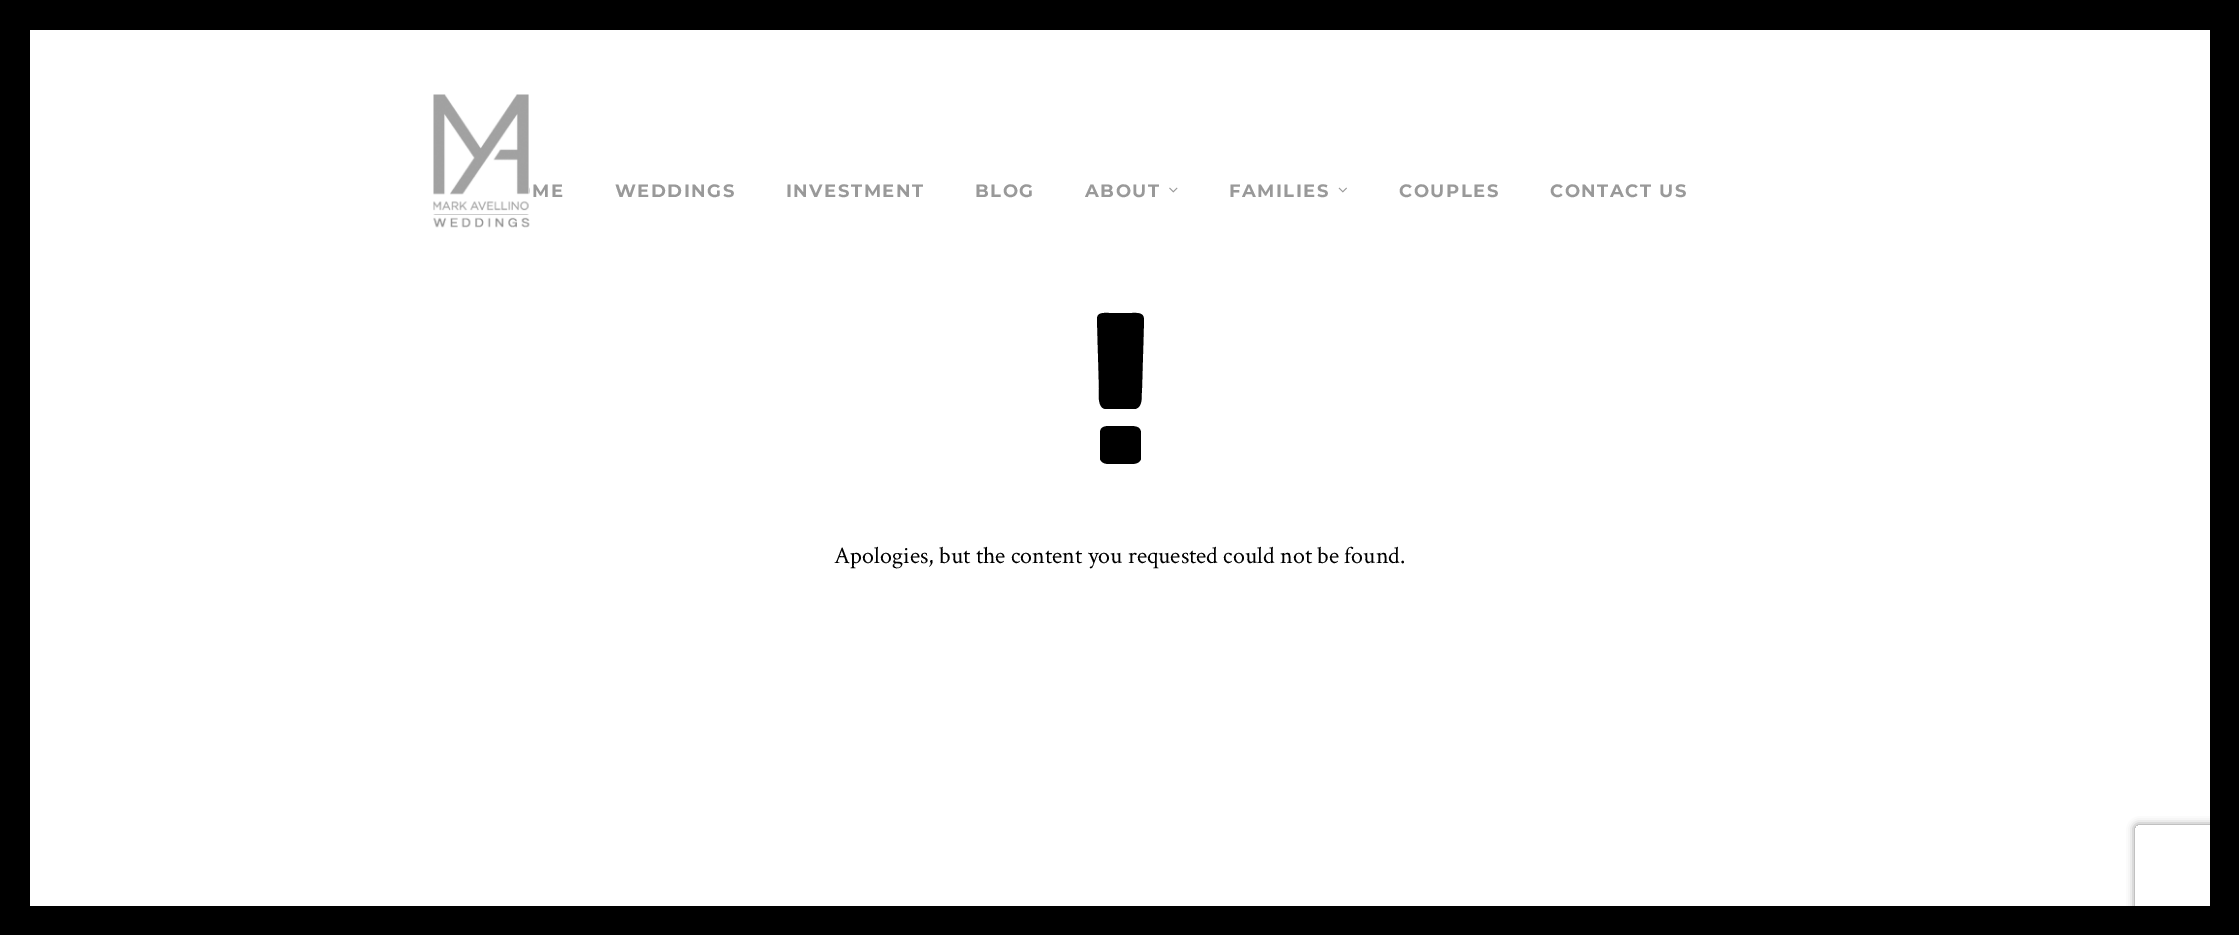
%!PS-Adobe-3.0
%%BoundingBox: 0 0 2239 935
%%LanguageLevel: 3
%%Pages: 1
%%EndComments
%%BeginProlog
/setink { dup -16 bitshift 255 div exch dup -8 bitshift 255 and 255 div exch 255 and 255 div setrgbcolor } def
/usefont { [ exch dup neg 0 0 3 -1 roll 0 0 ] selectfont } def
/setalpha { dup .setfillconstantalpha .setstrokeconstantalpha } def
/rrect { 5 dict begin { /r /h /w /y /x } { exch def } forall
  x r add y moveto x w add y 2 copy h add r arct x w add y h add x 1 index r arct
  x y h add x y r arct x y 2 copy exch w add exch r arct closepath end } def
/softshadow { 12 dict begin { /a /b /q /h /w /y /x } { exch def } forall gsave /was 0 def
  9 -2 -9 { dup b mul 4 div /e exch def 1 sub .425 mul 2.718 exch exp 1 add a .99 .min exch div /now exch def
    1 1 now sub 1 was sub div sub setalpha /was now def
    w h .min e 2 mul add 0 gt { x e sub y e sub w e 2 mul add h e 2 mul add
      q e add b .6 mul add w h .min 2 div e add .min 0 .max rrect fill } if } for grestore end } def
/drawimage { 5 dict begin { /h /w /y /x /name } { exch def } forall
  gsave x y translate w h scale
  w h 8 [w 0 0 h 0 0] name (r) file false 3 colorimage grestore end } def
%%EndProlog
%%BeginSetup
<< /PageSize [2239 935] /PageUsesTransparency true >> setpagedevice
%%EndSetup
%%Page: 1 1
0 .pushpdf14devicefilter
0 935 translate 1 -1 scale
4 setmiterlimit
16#FFFFFF setink
0 0 2239 935 rectfill
16#000000 setink
0 0 2239 30 rectfill
0 30 30 905 rectfill
(img1.raw) 433 94 97 134 drawimage
/Montserrat-Bold 18 usefont
16#999999 setink
532 197 moveto 1.5 0 (ME) ashow
615 197 moveto 1.5 0 (WEDDINGS) ashow
786 197 moveto 1.5 0 (INVESTMENT) ashow
975 197 moveto 1.5 0 (BLOG) ashow
1085 197 moveto 1.5 0 (ABOUT) ashow
(img2.raw) 1169 187 9 6 drawimage
1229 197 moveto 1.5 0 (FAMILIES) ashow
(img3.raw) 1338 187 9 6 drawimage
1399 197 moveto 1.5 0 (COUPLES) ashow
1550 197 moveto 1.5 0 (CONTACT US) ashow
16#000000 setink
1141 433 moveto 1141 459 lineto 1139 464 1134 464 1129 464 curveto 1111 464 lineto 1107 464 1102 464 1100 459 curveto 1100 433 lineto 1100 426 1106 426 1111 426 curveto 1129 426 lineto 1134 426 1141 426 1141 433 curveto closepath 1144 320 moveto 1142 388 lineto 1141 393 1144 407 1135 409 curveto 1105 409 lineto 1097 407 1099 393 1099 388 curveto 1097 319 lineto 1097 312 1104 313 1109 313 curveto 1132 313 lineto 1137 313 1144 312 1144 320 curveto closepath fill
/CrimsonText-Regular 24 usefont
834 563 moveto (Apologies, but the content you requested could not be found.) show
gsave
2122 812 moveto 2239 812 lineto 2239 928 lineto 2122 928 lineto closepath 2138 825 moveto 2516 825 lineto 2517.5 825 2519 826.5 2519 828 curveto 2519 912 lineto 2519 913.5 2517.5 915 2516 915 curveto 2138 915 lineto 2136.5 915 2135 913.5 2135 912 curveto 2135 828 lineto 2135 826.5 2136.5 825 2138 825 curveto closepath eoclip newpath
16#808080 setink
2135 825 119 90 3 4 1 softshadow
grestore
2210 30 29 905 rectfill
30 906 2180 29 rectfill
.poppdf14devicefilter showpage
%%EOF
